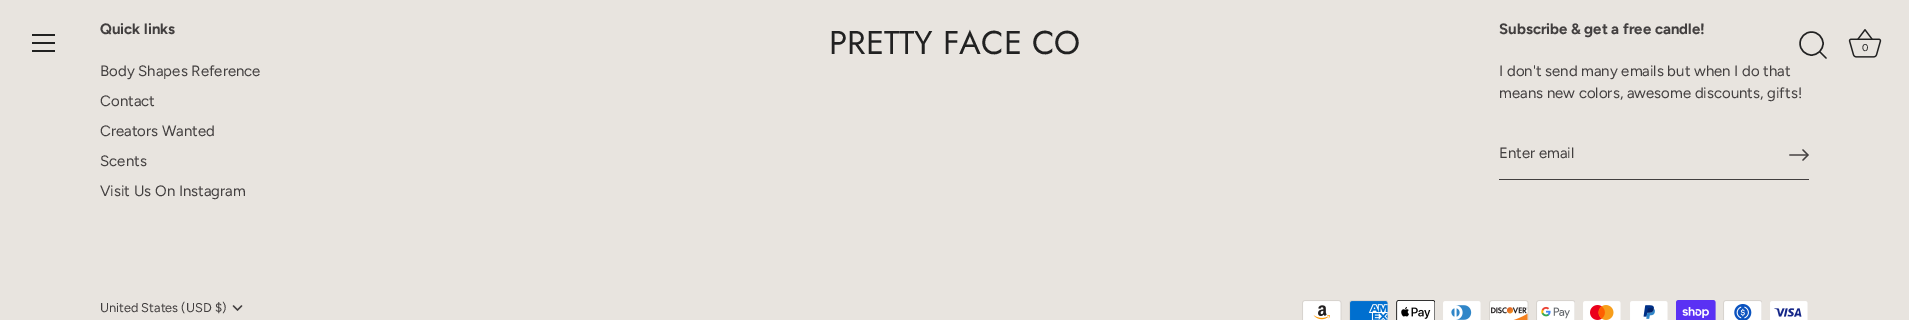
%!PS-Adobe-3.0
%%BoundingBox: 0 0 1909 320
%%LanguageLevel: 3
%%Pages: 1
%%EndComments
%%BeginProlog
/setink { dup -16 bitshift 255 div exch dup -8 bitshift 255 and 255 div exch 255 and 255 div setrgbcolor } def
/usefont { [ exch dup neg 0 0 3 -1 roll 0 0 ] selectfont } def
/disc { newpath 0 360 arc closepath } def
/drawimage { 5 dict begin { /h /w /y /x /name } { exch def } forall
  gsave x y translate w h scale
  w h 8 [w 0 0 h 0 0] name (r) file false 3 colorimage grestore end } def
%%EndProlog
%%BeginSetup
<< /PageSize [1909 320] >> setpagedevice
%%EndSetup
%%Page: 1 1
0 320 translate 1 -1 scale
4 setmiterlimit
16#E8E4DF setink
0 0 1909 320 rectfill
/Figtree-Bold 15 usefont
16#423F3F setink
100 34 moveto (Quick links) show
/Figtree-Regular 15 usefont
[
    [(Body Shapes Reference) 100 76]
    [(Contact) 100 106]
    [(Creators Wanted) 100 136]
    [(Scents) 100 166]
    [(Visit Us On Instagram) 100 196]
] { aload pop moveto show } forall
/Figtree-Bold 15 usefont
1499 34 moveto (Subscribe & get a free candle!) show
/Figtree-Regular 15 usefont
1499 76 moveto (I don't send many emails but when I do that) show
1499 98 moveto (means new colors, awesome discounts, gifts!) show
1499 179 310 1 rectfill
1499 158 moveto (Enter email) show
1.3 setlinewidth
1 setlinecap
1803 160 moveto 1808 155 lineto 1803 150 lineto stroke
1 setlinejoin
1807 155 moveto 1790 155 lineto stroke
/Figtree-Regular 12.75 usefont
100 312 moveto (United States \(USD $\)) show
1.4 setlinewidth
0 setlinejoin
233.5 306 moveto 237.5 310 lineto 241.5 306 lineto stroke
(img1.raw) 1302 300 40 20 drawimage
(img2.raw) 1349 300 39 20 drawimage
(img3.raw) 1396 300 39 20 drawimage
(img4.raw) 1443 301 38 19 drawimage
(img5.raw) 1489 300 40 20 drawimage
(img6.raw) 1536 300 39 20 drawimage
(img7.raw) 1583 301 38 19 drawimage
(img8.raw) 1630 301 38 19 drawimage
(img9.raw) 1676 300 40 20 drawimage
(img10.raw) 1723 300 39 20 drawimage
(img11.raw) 1770 301 38 19 drawimage
[
    [32 34 23 2 16#212121]
    [32 42 23 2 16#212121]
    [32 50 23 2 16#212121]
] { aload pop setink rectfill } forall
/Jost-Regular 33 usefont
829 54 moveto (PRETTY FACE CO) show
0 setlinecap
1811.5 43.5 11.5 disc stroke
1 setlinecap
1 setlinejoin
1826 58 moveto 1820 52 lineto stroke
(img12.raw) 1848 29 34 29 drawimage
/Figtree-Regular 10 usefont
1862 51 moveto (0) show
showpage
%%EOF
